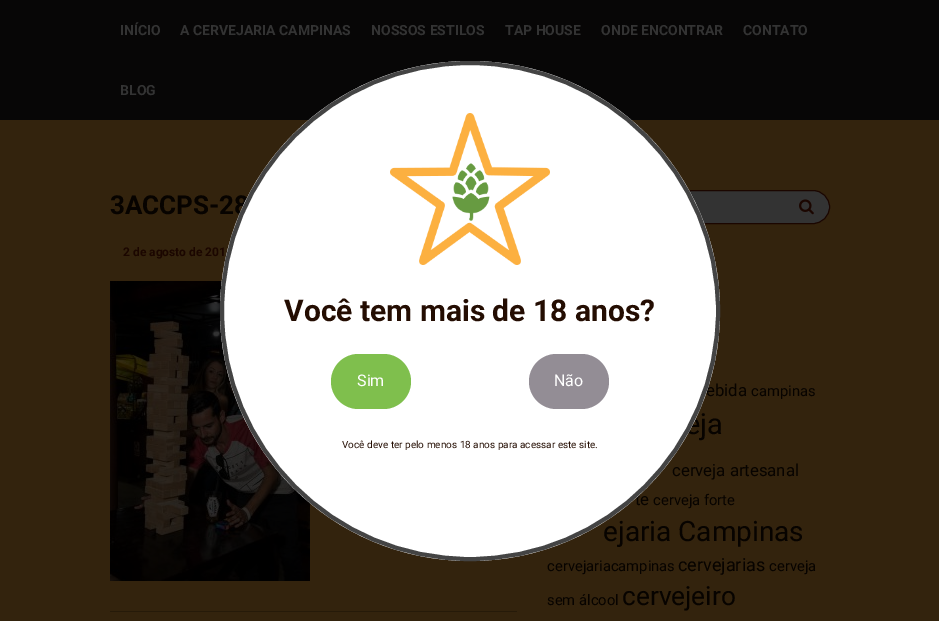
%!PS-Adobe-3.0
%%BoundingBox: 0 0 939 621
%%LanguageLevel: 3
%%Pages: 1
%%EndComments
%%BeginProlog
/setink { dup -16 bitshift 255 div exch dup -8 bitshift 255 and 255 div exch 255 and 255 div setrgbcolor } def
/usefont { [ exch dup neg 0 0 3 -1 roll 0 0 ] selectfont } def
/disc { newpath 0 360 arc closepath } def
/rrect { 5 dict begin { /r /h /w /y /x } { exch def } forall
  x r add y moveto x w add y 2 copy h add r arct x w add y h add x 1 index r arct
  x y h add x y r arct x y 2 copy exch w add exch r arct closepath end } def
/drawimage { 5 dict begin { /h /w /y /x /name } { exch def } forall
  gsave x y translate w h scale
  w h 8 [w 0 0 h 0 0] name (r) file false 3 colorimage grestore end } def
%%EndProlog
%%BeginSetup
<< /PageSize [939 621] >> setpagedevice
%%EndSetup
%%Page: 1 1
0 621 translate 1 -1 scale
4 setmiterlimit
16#33230D setink
0 0 939 621 rectfill
16#070606 setink
0 0 939 120 rectfill
/Roboto-Bold 14 usefont
16#333333 setink
[
    [(INÍCIO) 120 35]
    [(A CERVEJARIA CAMPINAS) 180 35]
    [(NOSSOS ESTILOS) 371 35]
    [(TAP HOUSE) 505 35]
    [(ONDE ENCONTRAR) 601 35]
    [(CONTATO) 743 35]
    [(BLOG) 120 95]
] { aload pop moveto show } forall
/Roboto-Bold 26 usefont
16#070300 setink
110 214 moveto (3ACCPS-28) show
/Roboto-Bold 12 usefont
16#1B0600 setink
123 256 moveto (2 de agosto de 201) show
(img1.raw) 110 281 200 300 drawimage
16#261A09 setink
110 611 407 1 rectfill
16#333333 setink
547.5 190.5 282 33 16.5 rrect gsave fill grestore
16#1B0600 setink
stroke
(img2.raw) 799 199 15 16 drawimage
/Roboto-Regular 16.75 usefont
16#070300 setink
706 396 moveto (ebida) show
/Roboto-Regular 14.75 usefont
751 396 moveto (campinas) show
/Roboto-Regular 29 usefont
685 434 moveto (eja) show
/Roboto-Regular 16.75 usefont
672 476 moveto (cerveja artesanal) show
635 505 moveto (te) show
/Roboto-Regular 14.75 usefont
653 505 moveto (cerveja forte) show
/Roboto-Regular 28 usefont
603 541 moveto (ejaria Campinas) show
/Roboto-Regular 14.75 usefont
547 571 moveto (cervejariacampinas) show
/Roboto-Regular 18 usefont
678 571 moveto (cervejarias) show
/Roboto-Regular 14.75 usefont
769 571 moveto (cerveja) show
547 605 moveto (sem álcool) show
/Roboto-Regular 26.25 usefont
622 605 moveto (cervejeiro) show
16#FFFFFF setink
470 311 250 disc fill
(img3.raw) 390 113 160 152 drawimage
16#444444 setink
4 setlinewidth
470 311 248 disc stroke
/Roboto-Bold 30 usefont
16#240D02 setink
284 321 moveto (Você tem mais de 18 anos?) show
16#7FBF4D setink
331 354 80 55 27.5 rrect fill
/Roboto-Regular 16 usefont
16#FFFFFF setink
357 386 moveto (Sim) show
16#938D95 setink
529 354 80 55 27.5 rrect fill
16#FFFFFF setink
554 386 moveto (Não) show
/Roboto-Regular 10 usefont
16#240D02 setink
342 448 moveto (Você deve ter pelo menos 18 anos para acessar este site.) show
showpage
%%EOF
